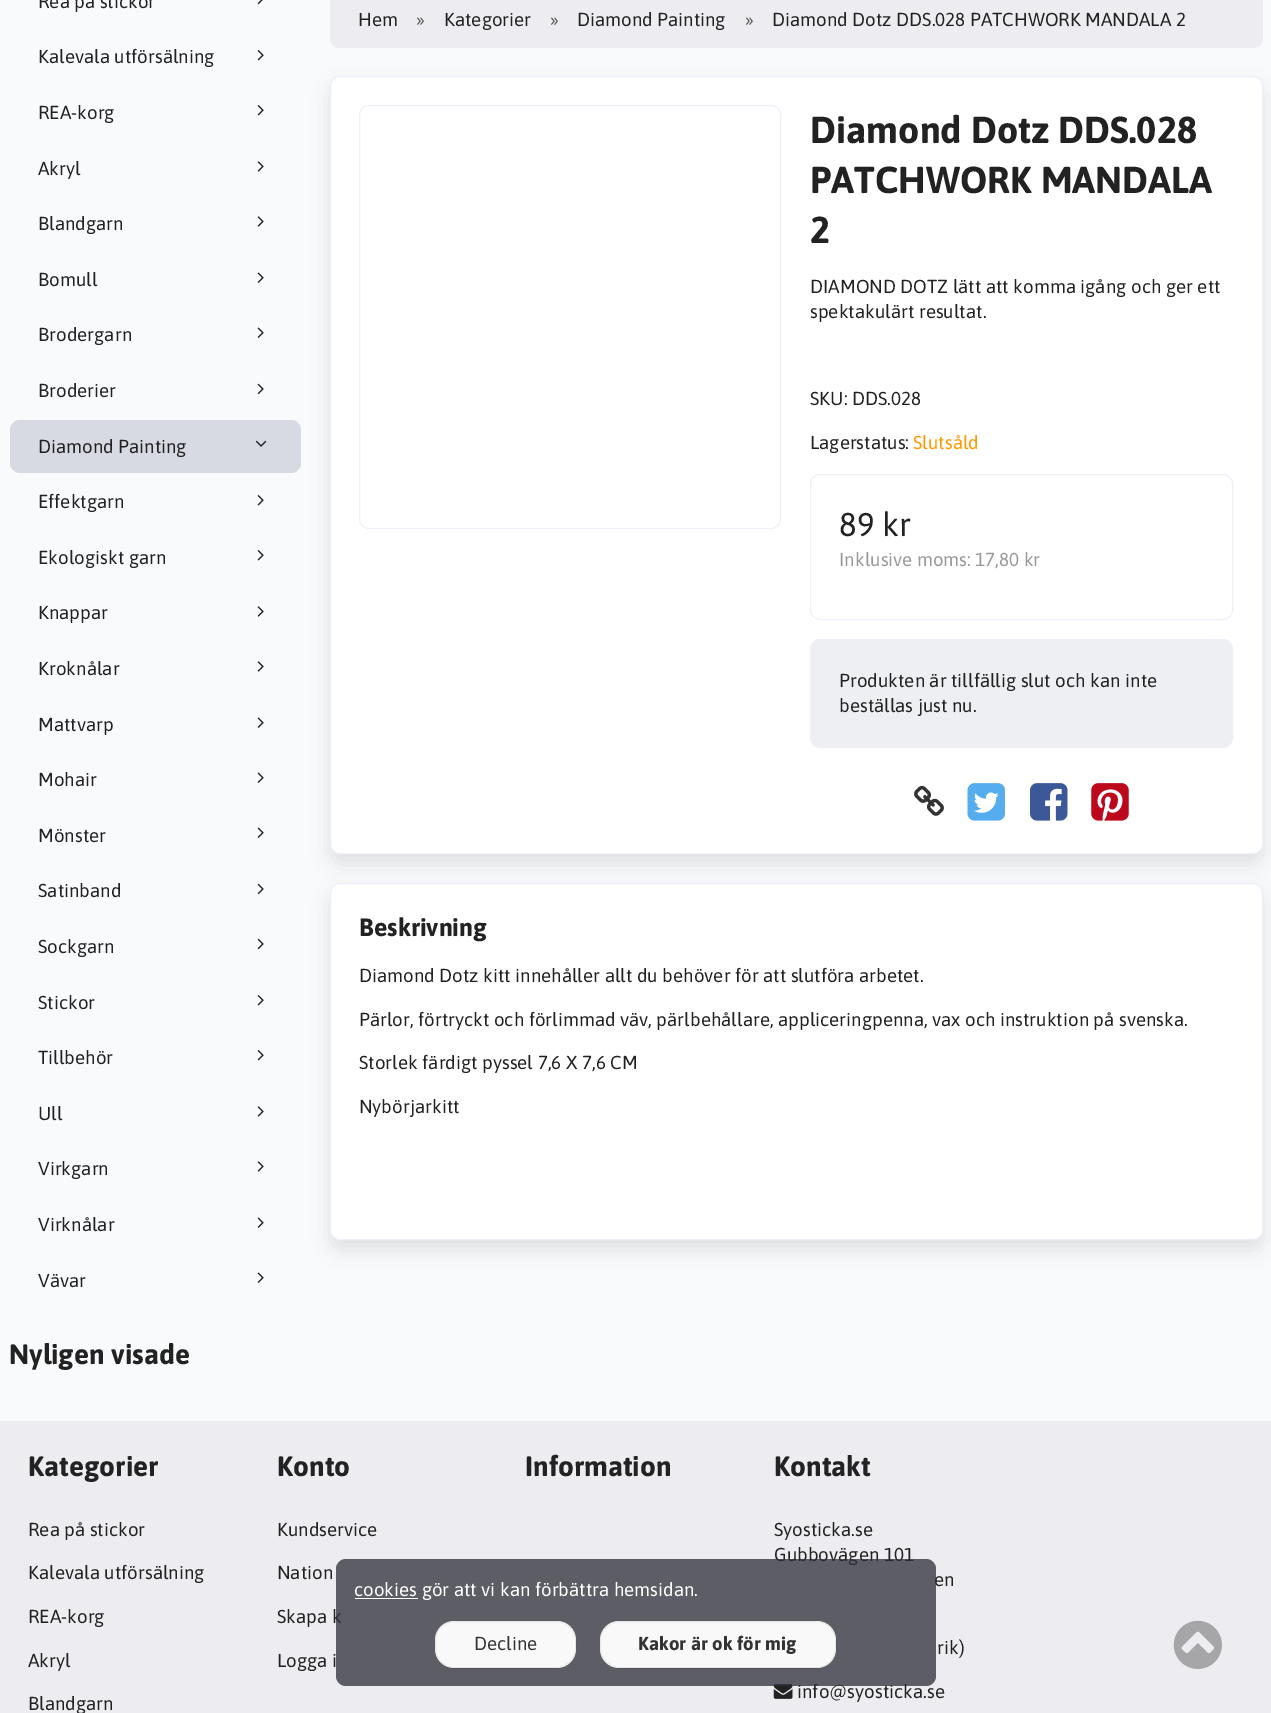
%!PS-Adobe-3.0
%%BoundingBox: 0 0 1271 1713
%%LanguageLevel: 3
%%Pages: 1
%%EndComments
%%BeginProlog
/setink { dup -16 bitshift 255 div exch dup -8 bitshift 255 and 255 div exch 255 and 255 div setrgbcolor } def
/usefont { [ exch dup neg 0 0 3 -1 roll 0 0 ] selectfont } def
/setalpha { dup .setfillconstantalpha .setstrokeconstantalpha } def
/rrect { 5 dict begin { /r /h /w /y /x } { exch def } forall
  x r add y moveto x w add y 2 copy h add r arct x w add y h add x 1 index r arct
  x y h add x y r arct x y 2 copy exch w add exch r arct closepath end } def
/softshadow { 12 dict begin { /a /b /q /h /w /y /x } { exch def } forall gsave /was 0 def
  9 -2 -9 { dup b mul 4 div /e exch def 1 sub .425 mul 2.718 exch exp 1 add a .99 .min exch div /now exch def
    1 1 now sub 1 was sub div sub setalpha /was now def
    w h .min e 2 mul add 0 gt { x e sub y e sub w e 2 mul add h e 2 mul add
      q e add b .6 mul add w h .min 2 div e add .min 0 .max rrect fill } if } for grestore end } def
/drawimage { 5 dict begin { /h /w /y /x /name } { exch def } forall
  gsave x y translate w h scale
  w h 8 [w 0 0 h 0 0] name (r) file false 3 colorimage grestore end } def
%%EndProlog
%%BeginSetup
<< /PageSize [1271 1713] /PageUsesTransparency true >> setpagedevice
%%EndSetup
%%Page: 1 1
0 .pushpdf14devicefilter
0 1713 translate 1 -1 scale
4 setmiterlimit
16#F9FAFC setink
0 0 1271 1713 rectfill
/Asap-Regular 18.75 usefont
16#222222 setink
38 8 moveto (Rea på stickor) show
(img1.raw) 257 0 6 5 drawimage
38 63 moveto (Kalevala utförsälning) show
(img2.raw) 257 50 7 11 drawimage
38 119 moveto (REA-korg) show
(img2.raw) 257 105 7 11 drawimage
38 175 moveto (Akryl) show
(img3.raw) 257 161 7 11 drawimage
38 230 moveto (Blandgarn) show
(img3.raw) 257 216 7 11 drawimage
38 286 moveto (Bomull) show
(img4.raw) 257 272 7 11 drawimage
38 341 moveto (Brodergarn) show
(img4.raw) 257 327 7 11 drawimage
38 397 moveto (Broderier) show
(img5.raw) 257 383 7 12 drawimage
16#000000 setink
330 86 933 778 10 9.5 0.1 softshadow
16#D7DAE3 setink
10 420 291 53 10 rrect fill
16#222222 setink
38 453 moveto (Diamond Painting) show
(img6.raw) 255 440 12 7 drawimage
38 508 moveto (Effektgarn) show
(img2.raw) 257 495 7 11 drawimage
38 564 moveto (Ekologiskt garn) show
(img2.raw) 257 550 7 11 drawimage
38 619 moveto (Knappar) show
(img3.raw) 257 606 7 11 drawimage
38 675 moveto (Kroknålar) show
(img3.raw) 257 661 7 11 drawimage
38 731 moveto (Mattvarp) show
(img4.raw) 257 717 7 11 drawimage
38 786 moveto (Mohair) show
(img4.raw) 257 772 7 11 drawimage
38 842 moveto (Mönster) show
(img4.raw) 257 827 7 11 drawimage
38 897 moveto (Satinband) show
(img5.raw) 257 883 7 12 drawimage
38 953 moveto (Sockgarn) show
(img5.raw) 257 938 7 12 drawimage
38 1009 moveto (Stickor) show
(img2.raw) 257 995 7 11 drawimage
38 1064 moveto (Tillbehör) show
(img2.raw) 257 1050 7 11 drawimage
38 1120 moveto (Ull) show
(img3.raw) 257 1106 7 11 drawimage
38 1175 moveto (Virkgarn) show
(img3.raw) 257 1161 7 11 drawimage
38 1231 moveto (Virknålar) show
(img4.raw) 257 1217 7 11 drawimage
38 1287 moveto (Vävar) show
(img4.raw) 257 1272 7 11 drawimage
/Asap-Bold 28 usefont
9 1364 moveto (Nyligen visade) show
16#EDEDF1 setink
330 -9 933 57 10 rrect fill
/Asap-Regular 18.75 usefont
16#222222 setink
358 26 moveto (Hem) show
16#555555 setink
416 26 moveto (») show
16#222222 setink
444 26 moveto (Kategorier) show
16#555555 setink
550 26 moveto (») show
16#222222 setink
577 26 moveto (Diamond Painting) show
16#555555 setink
745 26 moveto (») show
16#222222 setink
772 26 moveto (Diamond Dotz DDS.028 PATCHWORK MANDALA 2) show
16#FFFFFF setink
330.5 76.5 932 777 9.5 rrect gsave fill grestore
16#EFEFF9 setink
stroke
359.5 105.5 421 423 9.5 rrect stroke
/Asap-Bold 37.5 usefont
16#222222 setink
[
    [(Diamond Dotz DDS.028) 810 143]
    [(PATCHWORK MANDALA) 810 193]
    [(2) 810 243]
] { aload pop moveto show } forall
/Asap-Regular 18.75 usefont
[
    [(DIAMOND DOTZ lätt att komma igång och ger ett) 810 293]
    [(spektakulärt resultat.) 810 318]
    [(SKU: DDS.028) 810 405]
    [(Lagerstatus:) 810 449]
] { aload pop moveto show } forall
16#FF9900 setink
913 449 moveto (Slutsåld) show
16#EFEFF9 setink
810.5 474.5 422 145 9.5 rrect stroke
/Asap-Regular 33 usefont
16#222222 setink
839 536 moveto (89 kr) show
/Asap-Regular 18.75 usefont
16#999999 setink
839 566 moveto (Inklusive moms: 17,80 kr) show
16#EDEFF3 setink
810.5 639.5 422 108 9.5 rrect gsave fill grestore
16#EFEFF9 setink
stroke
16#222222 setink
839 687 moveto (Produkten är tillfällig slut och kan inte) show
839 712 moveto (beställas just nu.) show
(img7.raw) 914 785 30 31 drawimage
(img8.raw) 967 783 38 38 drawimage
(img9.raw) 1030 783 38 38 drawimage
(img10.raw) 1091 783 38 38 drawimage
16#000000 setink
330 893 933 357 10 9.5 0.1 softshadow
16#FFFFFF setink
330.5 883.5 932 356 9.5 rrect gsave fill grestore
16#EFEFF9 setink
stroke
/Asap-Bold 25 usefont
16#222222 setink
359 936 moveto (Beskrivning) show
/Asap-Regular 18.75 usefont
[
    [(Diamond Dotz kitt innehåller allt du behöver för att slutföra arbetet.) 359 982]
    [(Pärlor, förtryckt och förlimmad väv, pärlbehållare, appliceringpenna, vax och instruktion på svenska.) 359 1026]
    [(Storlek färdigt pyssel 7,6 X 7,6 CM) 359 1069]
    [(Nybörjarkitt) 359 1113]
] { aload pop moveto show } forall
16#EDEDF1 setink
0 1421 1271 292 rectfill
/Asap-Bold 28 usefont
16#222222 setink
28 1476 moveto (Kategorier) show
/Asap-Regular 18.75 usefont
[
    [(Rea på stickor) 28 1536]
    [(Kalevala utförsälning) 28 1579]
    [(REA-korg) 28 1623]
    [(Akryl) 28 1667]
    [(Blandgarn) 28 1710]
] { aload pop moveto show } forall
/Asap-Bold 28 usefont
277 1476 moveto (Konto) show
/Asap-Regular 18.75 usefont
[
    [(Kundservice) 277 1536]
    [(Nation) 277 1579]
    [(Skapa k) 277 1623]
    [(Logga i) 277 1667]
] { aload pop moveto show } forall
/Asap-Bold 28 usefont
525 1476 moveto (Information) show
774 1476 moveto (Kontakt) show
/Asap-Regular 18.75 usefont
[
    [(Syosticka.se) 774 1536]
    [(Gubbovägen 101) 774 1561]
    [(en) 934 1586]
    [(rik\)) 937 1654]
] { aload pop moveto show } forall
(img11.raw) 773 1684 20 15 drawimage
797 1698 moveto (info@syosticka.se) show
0.75 setalpha
16#2D2D38 setink
336 1559 600 127 10 rrect fill
1 setalpha
16#FFFFFF setink
355 1598 63 1 rectfill
354 1596 moveto (cookies gör att vi kan förbättra hemsidan.) show
16#000000 setink
435 1623 141 46 19 0.5 0.1 softshadow
16#F9F9F9 setink
435 1621 141 47 19 rrect fill
0.07 setalpha
16#000000 setink
435.5 1621.5 140 46 18.5 rrect stroke
1 setalpha
16#333333 setink
474 1650 moveto (Decline) show
16#000000 setink
600 1623 236 46 19 0.5 0.1 softshadow
16#F9F9F9 setink
600 1621 236 47 19 rrect fill
0.07 setalpha
16#000000 setink
600.5 1621.5 235 46 18.5 rrect stroke
/Asap-Bold 18.75 usefont
1 setalpha
16#333333 setink
638 1650 moveto (Kakor är ok för mig) show
(img12.raw) 1173 1620 49 49 drawimage
.poppdf14devicefilter showpage
%%EOF
